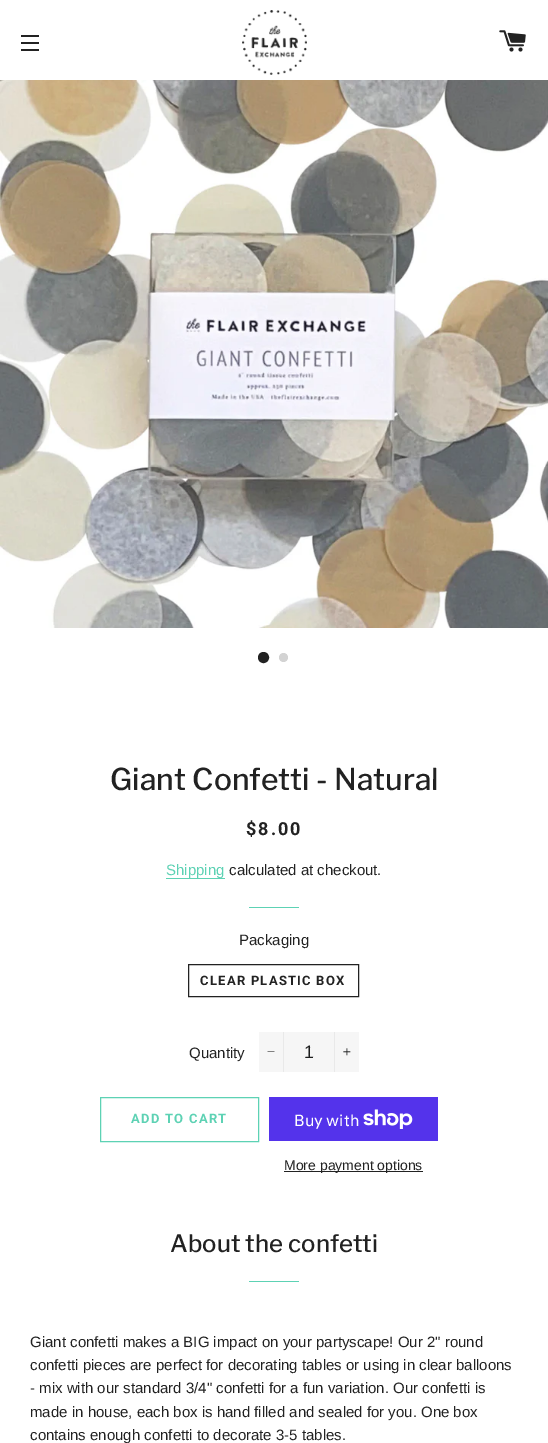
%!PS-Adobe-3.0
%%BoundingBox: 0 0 548 1443
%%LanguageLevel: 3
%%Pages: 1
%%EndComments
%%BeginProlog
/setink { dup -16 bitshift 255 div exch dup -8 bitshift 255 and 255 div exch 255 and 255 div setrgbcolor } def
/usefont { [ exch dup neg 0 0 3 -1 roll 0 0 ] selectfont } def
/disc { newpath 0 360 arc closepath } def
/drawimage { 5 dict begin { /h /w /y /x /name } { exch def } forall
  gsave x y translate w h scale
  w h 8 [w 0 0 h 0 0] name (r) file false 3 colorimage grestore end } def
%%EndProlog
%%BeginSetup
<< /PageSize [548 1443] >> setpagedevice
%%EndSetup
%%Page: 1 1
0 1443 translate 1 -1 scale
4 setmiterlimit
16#FFFFFF setink
0 0 548 1443 rectfill
[
    [21 35 18 2 16#222222]
    [21 42 18 2 16#222222]
    [21 49 18 2 16#222222]
] { aload pop setink rectfill } forall
(img1.raw) 242 10 65 65 drawimage
(img2.raw) 499 30 27 22 drawimage
(img3.raw) 0 80 548 548 drawimage
263.5 657.5 4.5 disc gsave fill grestore
2 setlinewidth
stroke
16#D3D3D3 setink
283.5 657.5 4.5 disc fill
/LibreFranklin-Medium 30 usefont
16#222222 setink
110 790 moveto (Giant Confetti - Natural) show
/Roboto-Bold 18 usefont
246 835 moveto 2 0 ($8.00) ashow
16#5DD2B4 setink
166 878 59 1 rectfill
/LiberationSans-Regular 15 usefont
166 875 moveto (Shipping) show
16#222222 setink
229 875 moveto (calculated at checkout.) show
16#5DD2B4 setink
249 907 50 1 rectfill
16#222222 setink
239 945 moveto (Packaging) show
1 setlinewidth
188.5 964.5 170 32 rectstroke
/Roboto-Bold 13 usefont
200 985 moveto 1.25 0 (CLEAR PLASTIC BOX) ashow
/LiberationSans-Regular 15 usefont
189 1058 moveto (Quantity) show
16#F6F6F6 setink
259 1032 100 40 rectfill
16#E9E9E9 setink
283 1032 1 40 rectfill
16#1C1D1D setink
267.5 1051.5 moveto 274.5 1051.5 lineto 274.5 1052 lineto 267.5 1052 lineto closepath fill
/LiberationSans-Regular 18 usefont
304 1058 moveto (1) show
16#E9E9E9 setink
334 1032 1 40 rectfill
(img4.raw) 343 1048 8 8 drawimage
16#5DD2B4 setink
100.5 1097.5 158 44 rectstroke
/Roboto-Bold 13 usefont
131 1123 moveto 1.25 0 (ADD TO CART) ashow
16#5433EB setink
269 1097 169 44 rectfill
/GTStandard-Regular 16 usefont
16#FFFFFF setink
294 1126 moveto (Buy with) show
(img5.raw) 363 1109 50 20 drawimage
16#222222 setink
284 1171 139 1 rectfill
/LiberationSans-Regular 14 usefont
284 1170 moveto (More payment options) show
/LibreFranklin-Medium 24 usefont
170 1252 moveto (About the confetti) show
16#5DD2B4 setink
249 1281 50 1 rectfill
/LiberationSans-Regular 15 usefont
16#222222 setink
[
    [(Giant confetti makes a BIG impact on your partyscape! Our 2" round) 30 1347]
    [(confetti pieces are perfect for decorating tables or using in clear balloons) 30 1370]
    [(- mix with our standard 3/4" confetti for a fun variation. Our confetti is) 30 1393]
    [(made in house, each box is hand filled and sealed for you. One box) 30 1417]
    [(contains enough confetti to decorate 3-5 tables.) 30 1440]
] { aload pop moveto show } forall
showpage
%%EOF
